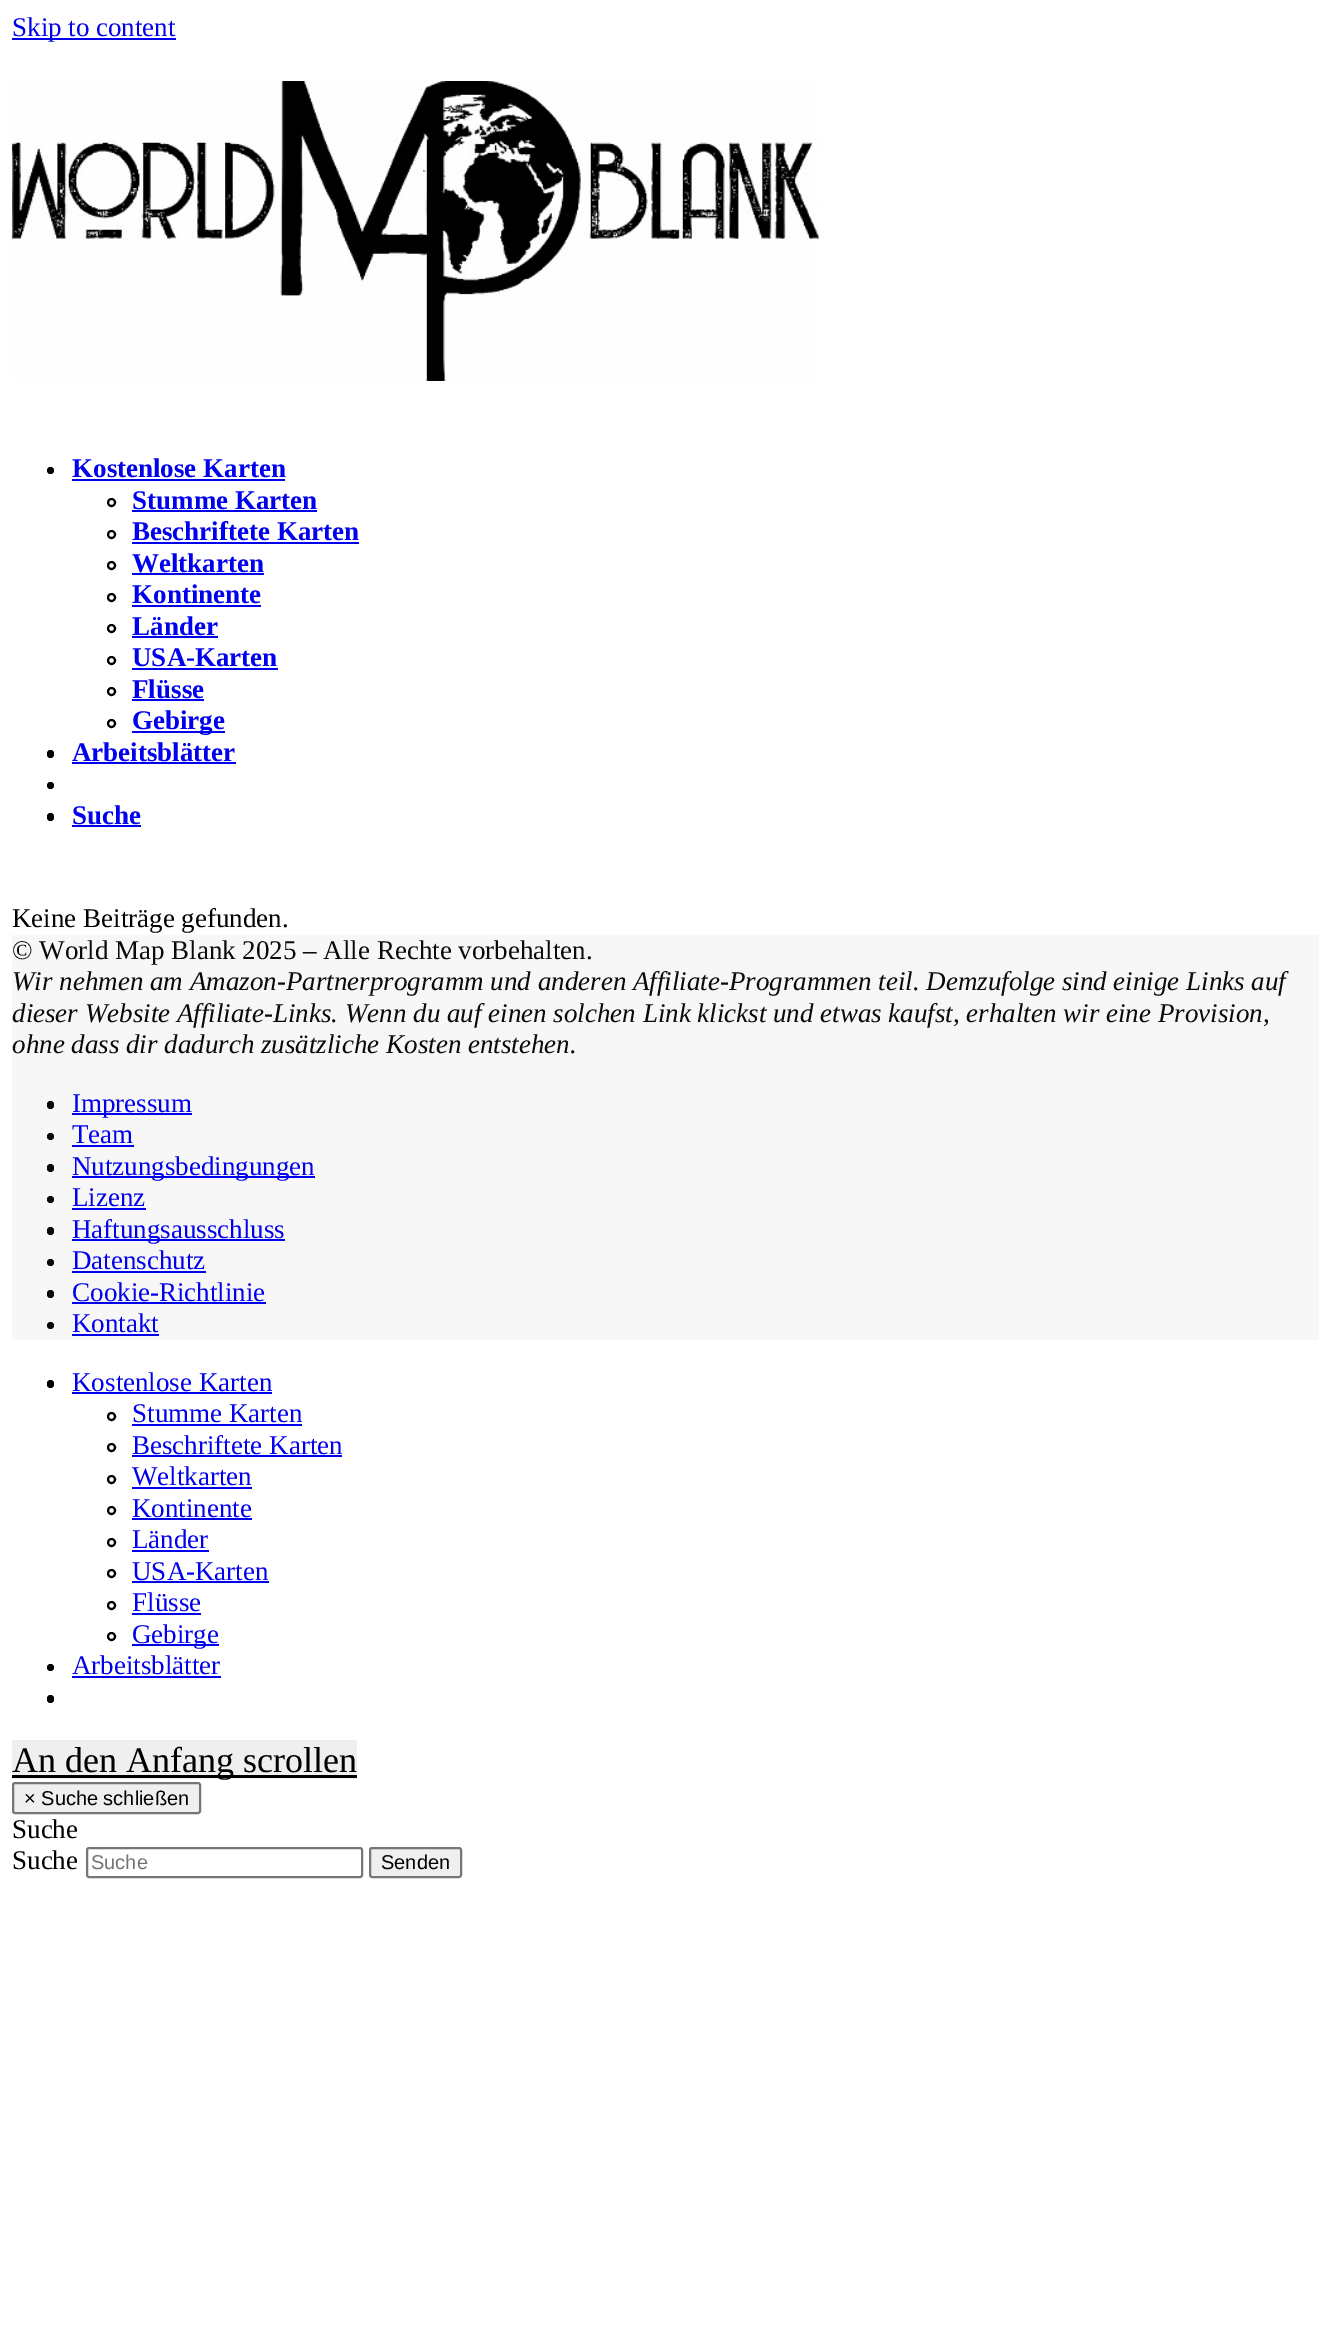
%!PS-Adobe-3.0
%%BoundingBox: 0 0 1330 2350
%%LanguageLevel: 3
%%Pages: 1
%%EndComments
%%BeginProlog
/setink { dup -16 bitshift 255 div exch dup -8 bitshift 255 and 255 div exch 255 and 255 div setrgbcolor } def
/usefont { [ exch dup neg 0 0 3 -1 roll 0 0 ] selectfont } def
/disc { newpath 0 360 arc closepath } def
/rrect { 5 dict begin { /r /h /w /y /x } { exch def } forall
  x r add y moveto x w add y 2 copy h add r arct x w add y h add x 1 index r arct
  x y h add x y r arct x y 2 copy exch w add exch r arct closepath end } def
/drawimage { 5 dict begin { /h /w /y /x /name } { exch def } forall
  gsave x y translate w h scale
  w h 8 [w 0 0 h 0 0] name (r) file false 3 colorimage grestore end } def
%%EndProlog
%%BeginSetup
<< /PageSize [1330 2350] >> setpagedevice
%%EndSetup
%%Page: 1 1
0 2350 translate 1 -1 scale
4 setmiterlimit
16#FFFFFF setink
0 0 1330 2350 rectfill
16#0000EE setink
12 38 164 2 rectfill
/LiberationSerif-Regular 27 usefont
12 36 moveto (Skip to content) show
(img1.raw) 12 81 807 300 drawimage
16#000000 setink
50.5 470.5 3.5 disc fill
/LiberationSerif-Bold 27 usefont
16#0000EE setink
72 477 moveto (Kostenlose Karten) show
72 479 213 2 rectfill
16#000000 setink
2 setlinewidth
111.5 502.5 3.5 disc stroke
16#0000EE setink
132 509 moveto (Stumme Karten) show
132 510 185 2 rectfill
16#000000 setink
111.5 534.5 3.5 disc stroke
16#0000EE setink
132 540 moveto (Beschriftete Karten) show
132 542 227 2 rectfill
16#000000 setink
111.5 565.5 3.5 disc stroke
16#0000EE setink
132 572 moveto (Weltkarten) show
132 573 132 2 rectfill
16#000000 setink
111.5 597.5 3.5 disc stroke
16#0000EE setink
132 603 moveto (Kontinente) show
132 605 129 2 rectfill
16#000000 setink
111.5 628.5 3.5 disc stroke
16#0000EE setink
132 635 moveto (Länder) show
132 636 86 2 rectfill
16#000000 setink
111.5 660.5 3.5 disc stroke
16#0000EE setink
132 666 moveto (USA-Karten) show
132 668 146 2 rectfill
16#000000 setink
111.5 691.5 3.5 disc stroke
16#0000EE setink
132 698 moveto (Flüsse) show
132 699 72 2 rectfill
16#000000 setink
111.5 723.5 3.5 disc stroke
16#0000EE setink
132 731 93 2 rectfill
132 729 moveto (Gebirge) show
16#000000 setink
47 750 7 8 3.5 rrect fill
16#0000EE setink
72 761 moveto (Arbeitsblätter) show
72 762 164 2 rectfill
16#000000 setink
50.5 785.5 3.5 disc fill
47 813 7 8 3.5 rrect fill
16#0000EE setink
72 824 moveto (Suche) show
72 825 69 2 rectfill
/LiberationSerif-Regular 27 usefont
16#000000 setink
12 927 moveto (Keine Beiträge gefunden.) show
16#F7F7F7 setink
12 935 1307 405 rectfill
16#0A0A0A setink
12 959 moveto (© World Map Blank 2025 – Alle Rechte vorbehalten.) show
/LiberationSerif-Italic 27 usefont
[
    [(Wir nehmen am Amazon-Partnerprogramm und anderen Affiliate-Programmen teil. Demzufolge sind einige Links auf) 12 990]
    [(dieser Website Affiliate-Links. Wenn du auf einen solchen Link klickst und etwas kaufst, erhalten wir eine Provision,) 12 1022]
    [(ohne dass dir dadurch zusätzliche Kosten entstehen.) 12 1053]
] { aload pop moveto show } forall
47 1101 7 8 3.5 rrect fill
16#0000EE setink
72 1113 120 2 rectfill
/LiberationSerif-Regular 27 usefont
72 1112 moveto (Impressum) show
16#0A0A0A setink
50.5 1136.5 3.5 disc fill
16#0000EE setink
72 1143 moveto (Team) show
72 1145 62 2 rectfill
16#0A0A0A setink
47 1164 7 8 3.5 rrect fill
16#0000EE setink
72 1176 243 2 rectfill
72 1175 moveto (Nutzungsbedingungen) show
16#0A0A0A setink
50.5 1199.5 3.5 disc fill
16#0000EE setink
72 1206 moveto (Lizenz) show
72 1208 74 2 rectfill
16#0A0A0A setink
47 1227 7 8 3.5 rrect fill
16#0000EE setink
72 1239 213 2 rectfill
72 1238 moveto (Haftungsausschluss) show
16#0A0A0A setink
50.5 1262.5 3.5 disc fill
16#0000EE setink
72 1269 moveto (Datenschutz) show
72 1271 134 2 rectfill
16#0A0A0A setink
47 1290 7 8 3.5 rrect fill
16#0000EE setink
72 1301 moveto (Cookie-Richtlinie) show
72 1302 194 2 rectfill
16#0A0A0A setink
50.5 1325.5 3.5 disc fill
16#0000EE setink
72 1332 moveto (Kontakt) show
72 1334 87 2 rectfill
16#000000 setink
47 1380 7 8 3.5 rrect fill
16#0000EE setink
72 1391 moveto (Kostenlose Karten) show
72 1392 200 2 rectfill
16#000000 setink
111.5 1416.5 3.5 disc stroke
16#0000EE setink
132 1422 moveto (Stumme Karten) show
132 1424 170 2 rectfill
16#000000 setink
111.5 1447.5 3.5 disc stroke
16#0000EE setink
132 1454 moveto (Beschriftete Karten) show
132 1455 210 2 rectfill
16#000000 setink
111.5 1479.5 3.5 disc stroke
16#0000EE setink
132 1485 moveto (Weltkarten) show
132 1487 120 2 rectfill
16#000000 setink
111.5 1510.5 3.5 disc stroke
16#0000EE setink
132 1517 moveto (Kontinente) show
132 1518 120 2 rectfill
16#000000 setink
111.5 1542.5 3.5 disc stroke
16#0000EE setink
132 1548 moveto (Länder) show
132 1550 77 2 rectfill
16#000000 setink
111.5 1573.5 3.5 disc stroke
16#0000EE setink
132 1580 moveto (USA-Karten) show
132 1581 137 2 rectfill
16#000000 setink
111.5 1605.5 3.5 disc stroke
16#0000EE setink
132 1611 moveto (Flüsse) show
132 1613 69 2 rectfill
16#000000 setink
111.5 1636.5 3.5 disc stroke
16#0000EE setink
132 1644 87 2 rectfill
132 1643 moveto (Gebirge) show
16#000000 setink
50.5 1667.5 3.5 disc fill
16#0000EE setink
72 1674 moveto (Arbeitsblätter) show
72 1676 149 2 rectfill
16#000000 setink
47 1695 7 8 3.5 rrect fill
16#EFEFEF setink
12 1740 345 39 rectfill
16#000000 setink
12 1775 345 3 rectfill
/LiberationSerif-Regular 36 usefont
12 1772 moveto (An den Anfang scrollen) show
16#EFEFEF setink
13 1783 187 30 2 rrect gsave fill grestore
16#767676 setink
stroke
/LiberationSans-Regular 20 usefont
16#000000 setink
24 1805 moveto (× Suche schließen) show
/LiberationSerif-Regular 27 usefont
12 1838 moveto (Suche) show
12 1869 moveto (Suche) show
16#767676 setink
87 1848 275 29 2 rrect stroke
/LiberationSans-Regular 20 usefont
16#757575 setink
91 1869 moveto (Suche) show
16#EFEFEF setink
370 1848 91 29 2 rrect gsave fill grestore
16#767676 setink
stroke
16#000000 setink
381 1869 moveto (Senden) show
showpage
%%EOF
